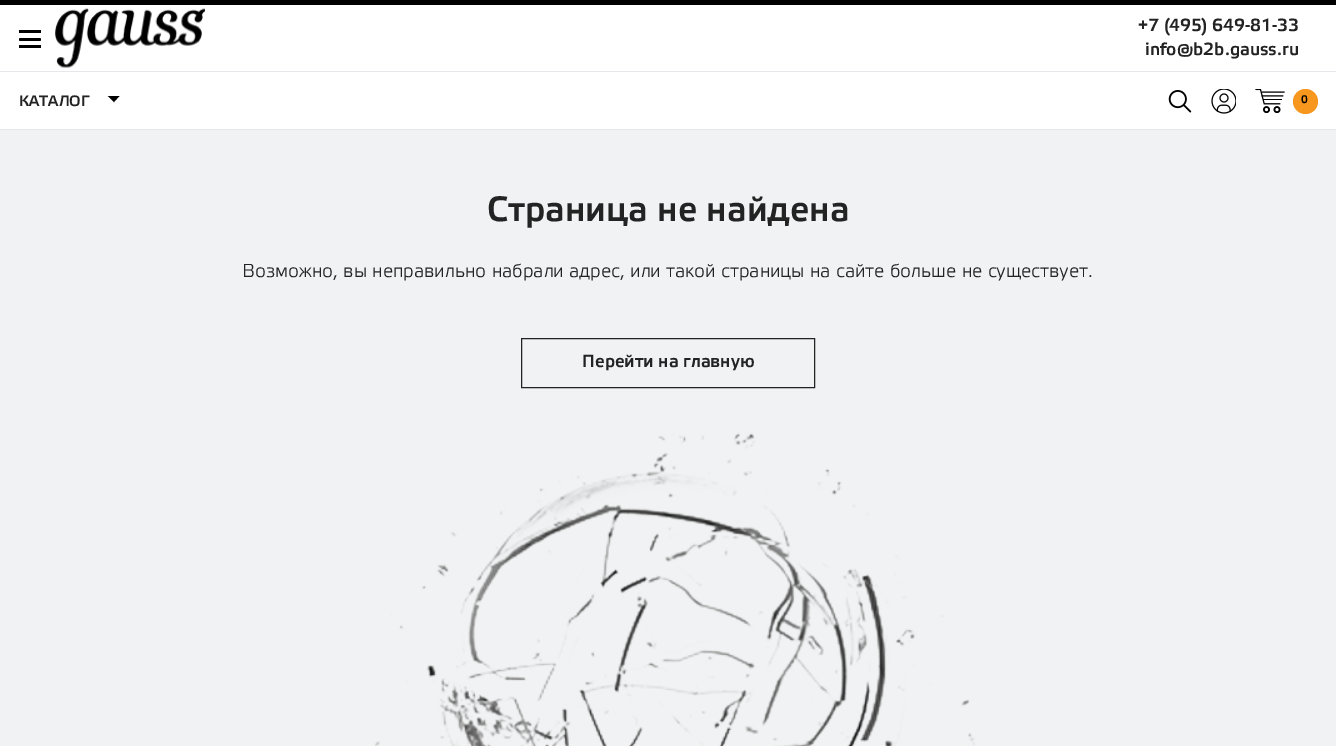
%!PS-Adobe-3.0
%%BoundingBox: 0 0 1336 746
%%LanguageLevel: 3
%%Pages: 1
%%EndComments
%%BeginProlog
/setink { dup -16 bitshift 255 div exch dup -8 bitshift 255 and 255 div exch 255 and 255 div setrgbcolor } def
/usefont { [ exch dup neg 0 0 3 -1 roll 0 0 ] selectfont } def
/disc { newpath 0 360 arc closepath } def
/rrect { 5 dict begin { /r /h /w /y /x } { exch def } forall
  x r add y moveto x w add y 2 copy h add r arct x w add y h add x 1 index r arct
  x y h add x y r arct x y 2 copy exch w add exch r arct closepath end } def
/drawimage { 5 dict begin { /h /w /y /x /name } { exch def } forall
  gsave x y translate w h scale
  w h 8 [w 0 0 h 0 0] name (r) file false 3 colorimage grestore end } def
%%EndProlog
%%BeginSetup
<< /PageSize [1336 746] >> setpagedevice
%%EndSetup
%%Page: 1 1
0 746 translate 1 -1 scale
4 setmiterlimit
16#F0F2F3 setink
0 0 1336 746 rectfill
16#FFFFFF setink
0 5 1336 124 rectfill
16#000000 setink
0 0 1336 5 rectfill
19 38 22 3 1.5 rrect fill
19 30 22 3 rectfill
19 45 22 3 rectfill
(img1.raw) 55 8 150 60 drawimage
/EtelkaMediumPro-Medium 17.5 usefont
16#232323 setink
1138 31 moveto (+7 \(495\) 649-81-33) show
1145 55 moveto (info@b2b.gauss.ru) show
16#E5E7EB setink
0 71 1336 1 rectfill
0 129 1336 1 rectfill
/EtelkaMediumPro-Medium 15 usefont
16#232323 setink
19 106 moveto (КАТАЛОГ) show
16#000000 setink
107.5 96 moveto 120 96 lineto 114 102.5 lineto closepath fill
16#FFFFFF setink
120 96 moveto 120 102.5 lineto 114 102.5 lineto closepath 107.5 102.5 moveto 107.5 96 lineto 114 102.5 lineto closepath fill
(img2.raw) 1168 90 24 23 drawimage
(img3.raw) 1211 89 25 25 drawimage
(img4.raw) 1255 89 30 24 drawimage
16#F7971D setink
1305.5 101.5 12.5 disc fill
/EtelkaMediumPro-Medium 11 usefont
16#000000 setink
1301 103 moveto (0) show
/EtelkaMediumPro-Medium 35 usefont
16#232323 setink
487 221 moveto (Страница не найдена) show
/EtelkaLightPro-Light 18.75 usefont
242 277 moveto (Возможно, вы неправильно набрали адрес, или такой страницы на сайте больше не существует.) show
521.5 338.5 293 49 rectstroke
/EtelkaMediumPro-Medium 17.5 usefont
582 367 moveto (Перейти на главную) show
(img5.raw) 374 433 601 313 drawimage
showpage
%%EOF
